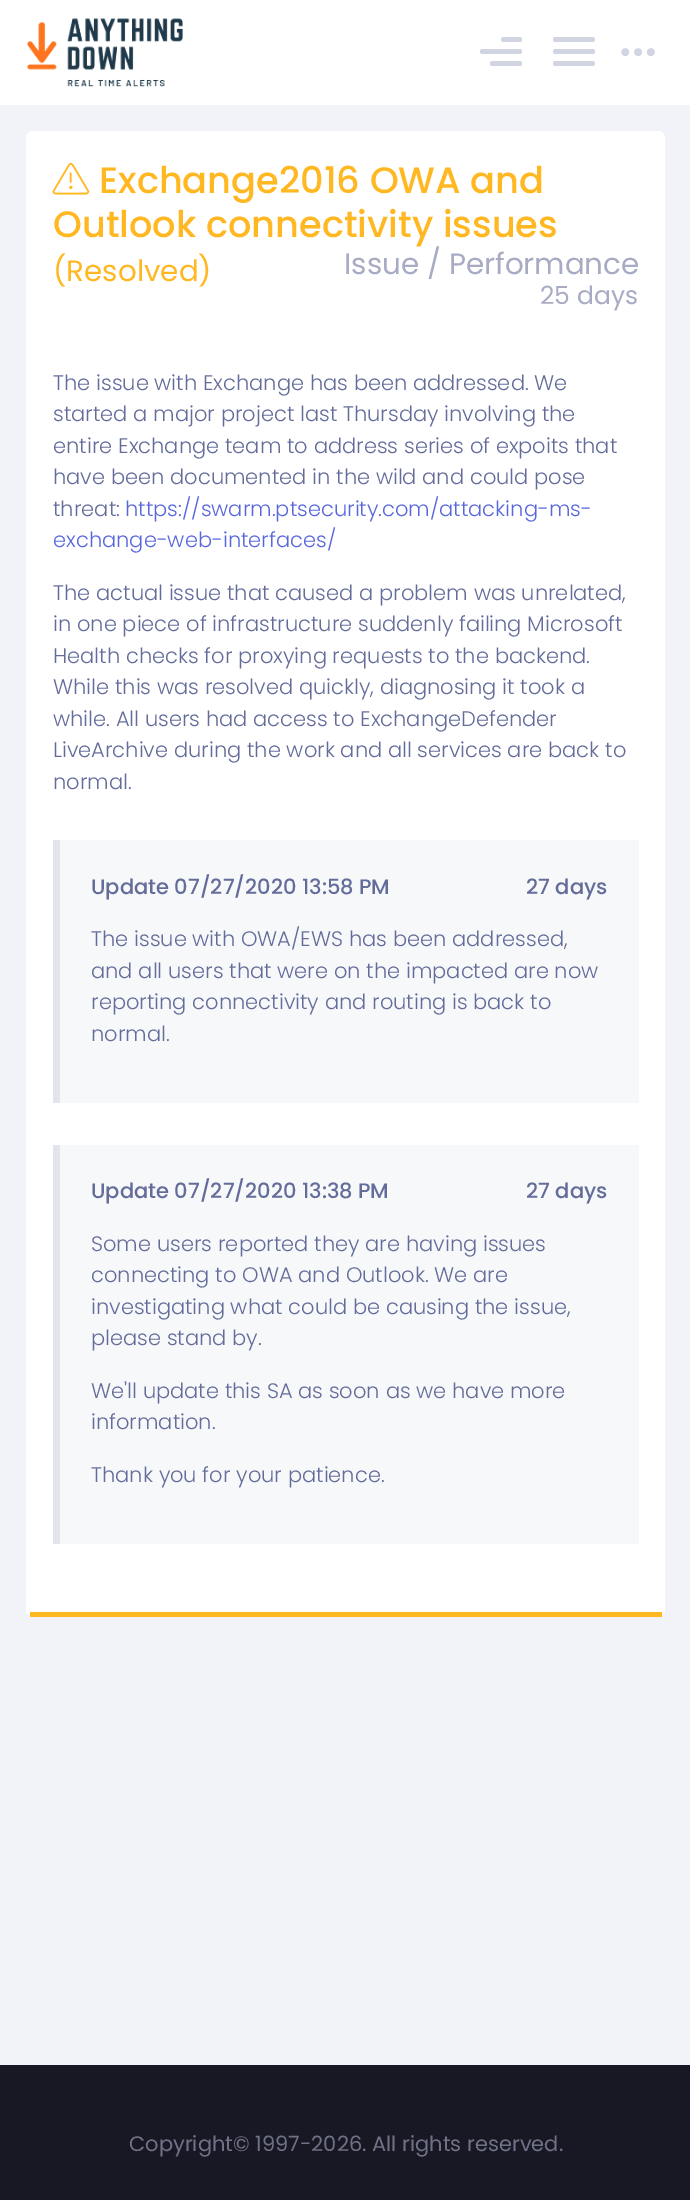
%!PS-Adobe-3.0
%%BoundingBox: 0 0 690 2200
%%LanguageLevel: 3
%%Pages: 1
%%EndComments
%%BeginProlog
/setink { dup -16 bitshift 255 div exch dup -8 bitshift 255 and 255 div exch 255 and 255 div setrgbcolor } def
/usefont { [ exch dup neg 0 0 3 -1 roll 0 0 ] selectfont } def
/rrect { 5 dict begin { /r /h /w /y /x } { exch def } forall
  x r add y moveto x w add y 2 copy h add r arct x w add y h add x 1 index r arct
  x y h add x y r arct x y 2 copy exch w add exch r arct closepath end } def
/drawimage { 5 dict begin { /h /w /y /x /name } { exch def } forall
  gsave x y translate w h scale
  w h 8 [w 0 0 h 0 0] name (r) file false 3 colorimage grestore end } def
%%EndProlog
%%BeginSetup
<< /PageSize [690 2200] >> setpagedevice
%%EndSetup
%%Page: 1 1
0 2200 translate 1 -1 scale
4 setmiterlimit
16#F2F3F8 setink
0 0 690 2200 rectfill
16#FFFFFF setink
0 0 690 105 rectfill
(img1.raw) 27 18 156 69 drawimage
16#D1D5E2 setink
480 49 42 5 2.5 rrect fill
501 37 21 5 2.5 rrect fill
490 61 32 5 2.5 rrect fill
553 49 42 5 2.5 rrect fill
553 37 42 5 2.5 rrect fill
553 61 42 5 2.5 rrect fill
(img2.raw) 621 48 34 9 drawimage
16#FFFFFF setink
26 131 639 1486 7 rrect fill
16#FFB822 setink
30 1612 632 5 rectfill
(img3.raw) 52 162 38 33 drawimage
/Poppins-Medium 36.75 usefont
99 193 moveto (Exchange2016 OWA and) show
53 237 moveto (Outlook connectivity issues) show
/Poppins-Regular 29.4 usefont
53 281 moveto (\(Resolved\)) show
16#A7ABC3 setink
344 274 moveto (Issue / Performance) show
/Poppins-Regular 25 usefont
540 304 moveto (25 days) show
/Poppins-Light 21 usefont
16#646C9A setink
[
    [(The issue with Exchange has been addressed. We) 53 390]
    [(started a major project last Thursday involving the) 53 421]
    [(entire Exchange team to address series of expoits that) 53 453]
    [(have been documented in the wild and could pose) 53 484]
    [(threat:) 53 516]
] { aload pop moveto show } forall
16#5867DD setink
125 516 moveto (https://swarm.ptsecurity.com/attacking-ms-) show
53 547 moveto (exchange-web-interfaces/) show
16#646C9A setink
[
    [(The actual issue that caused a problem was unrelated,) 53 600]
    [(in one piece of infrastructure suddenly failing Microsoft) 53 631]
    [(Health checks for proxying requests to the backend.) 53 663]
    [(While this was resolved quickly, diagnosing it took a) 53 694]
    [(while. All users had access to ExchangeDefender) 53 726]
    [(LiveArchive during the work and all services are back to) 53 757]
    [(normal.) 53 789]
] { aload pop moveto show } forall
16#F7F8FA setink
60 840 579 263 rectfill
16#E2E5EC setink
53 840 7 263 rectfill
/Poppins-Medium 21 usefont
16#646C9A setink
91 894 moveto (Update 07/27/2020 13:58 PM) show
526 894 moveto (27 days) show
/Poppins-Light 21 usefont
[
    [(The issue with OWA/EWS has been addressed,) 91 946]
    [(and all users that were on the impacted are now) 91 978]
    [(reporting connectivity and routing is back to) 91 1009]
    [(normal.) 91 1041]
] { aload pop moveto show } forall
16#F7F8FA setink
60 1145 579 399 rectfill
16#E2E5EC setink
53 1145 7 399 rectfill
/Poppins-Medium 21 usefont
16#646C9A setink
91 1198 moveto (Update 07/27/2020 13:38 PM) show
526 1198 moveto (27 days) show
/Poppins-Light 21 usefont
[
    [(Some users reported they are having issues) 91 1251]
    [(connecting to OWA and Outlook. We are) 91 1282]
    [(investigating what could be causing the issue,) 91 1314]
    [(please stand by.) 91 1345]
    [(We'll update this SA as soon as we have more) 91 1398]
    [(information.) 91 1429]
    [(Thank you for your patience.) 91 1482]
] { aload pop moveto show } forall
16#181824 setink
0 2065 690 135 rectfill
/Poppins-Regular 21 usefont
16#6F7286 setink
129 2151 moveto (Copyright© 1997-2026. All rights reserved.) show
showpage
%%EOF
